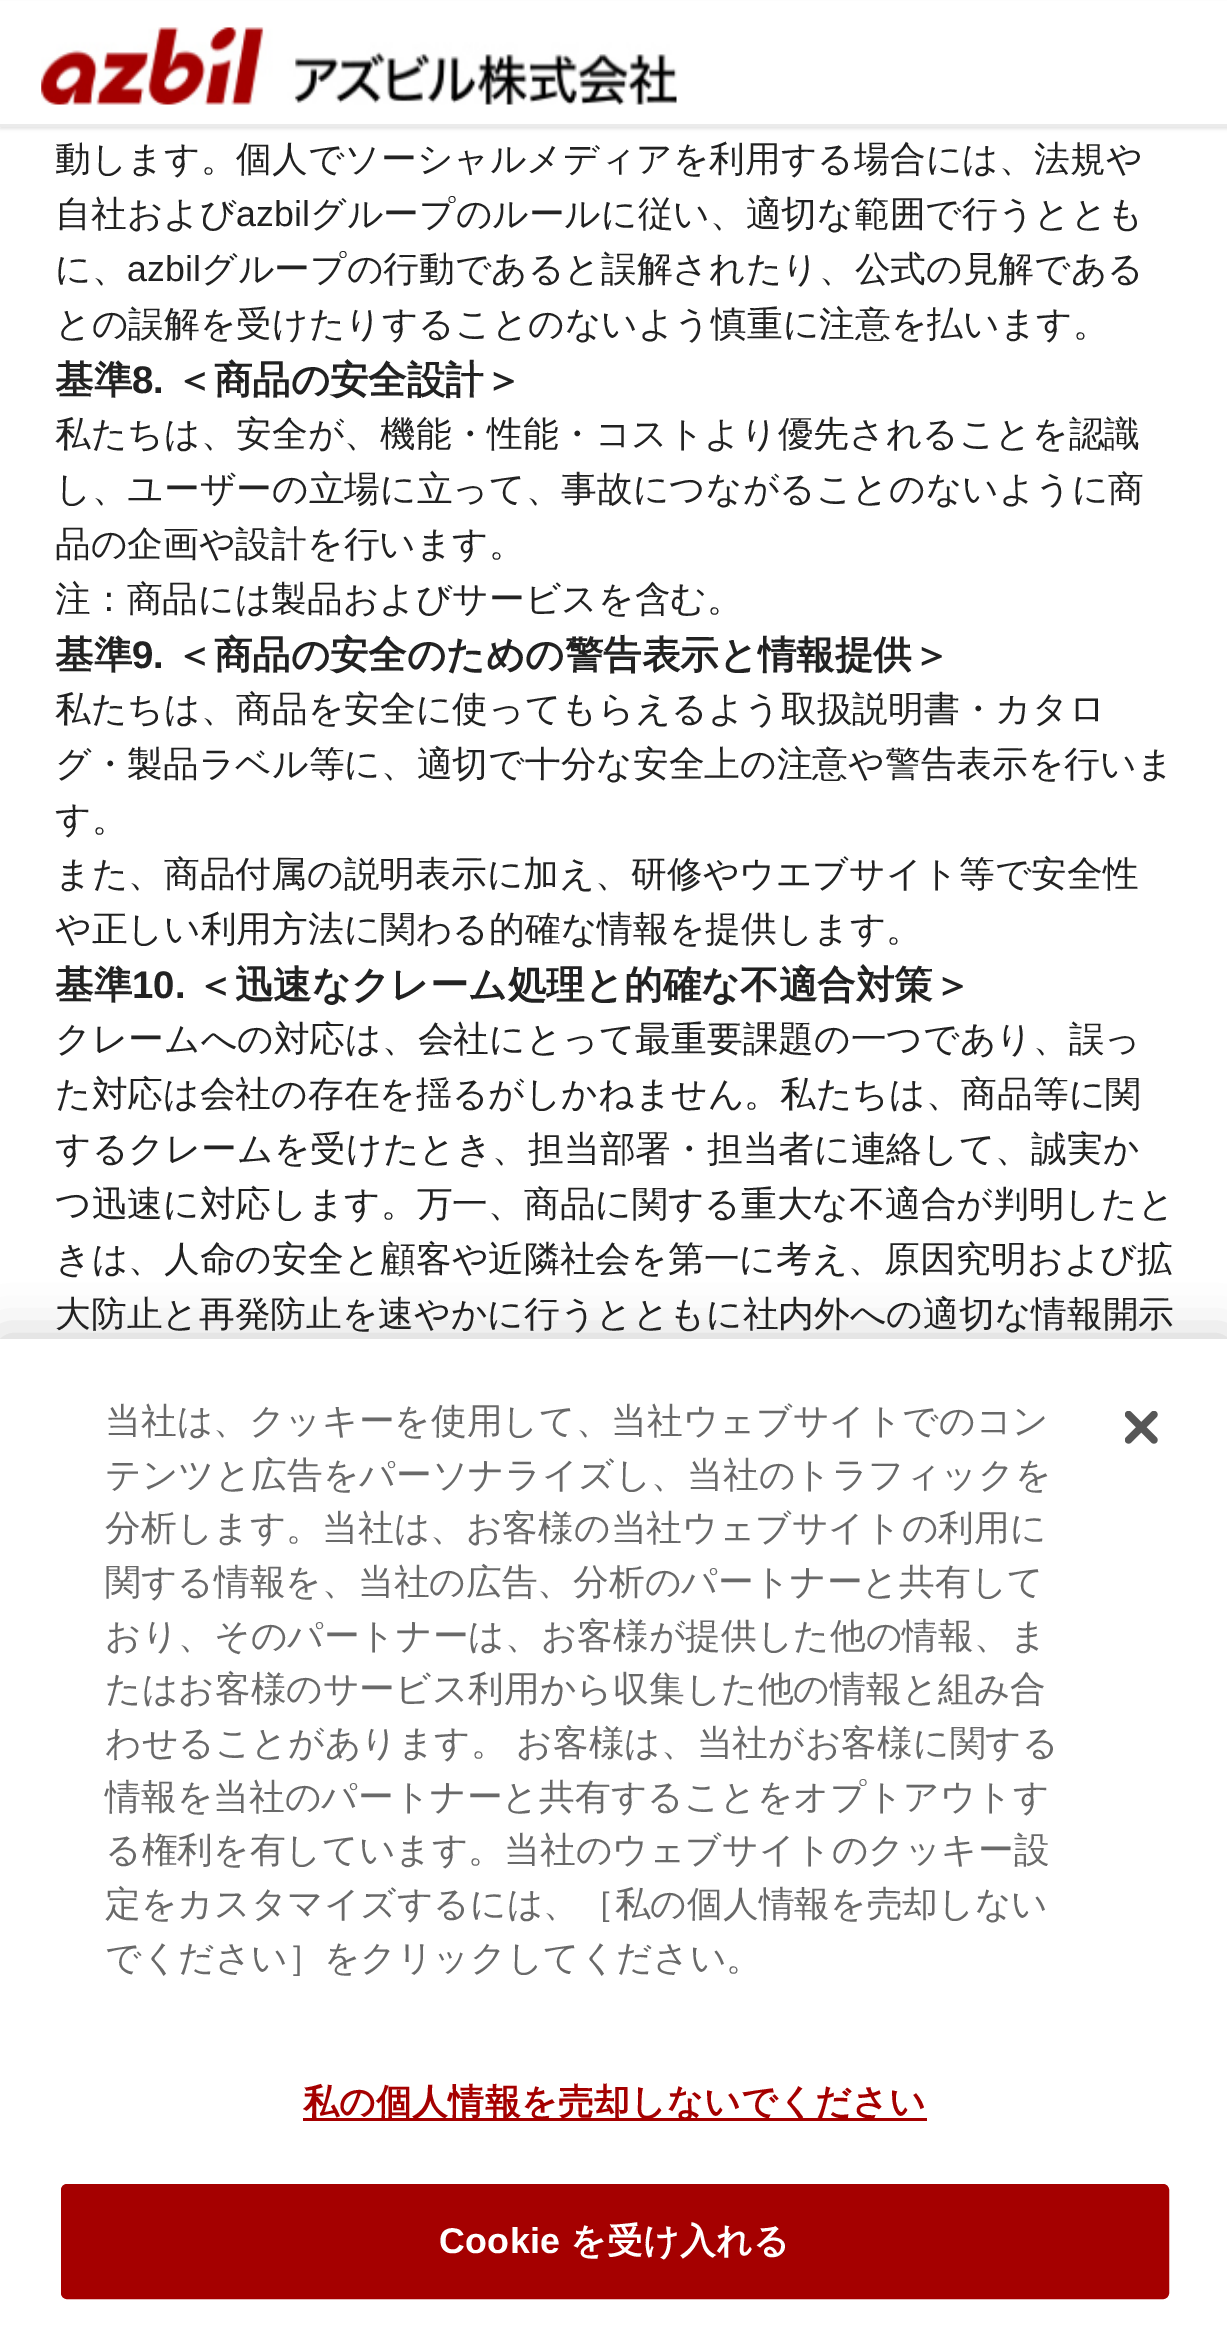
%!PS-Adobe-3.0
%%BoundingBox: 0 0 1227 2325
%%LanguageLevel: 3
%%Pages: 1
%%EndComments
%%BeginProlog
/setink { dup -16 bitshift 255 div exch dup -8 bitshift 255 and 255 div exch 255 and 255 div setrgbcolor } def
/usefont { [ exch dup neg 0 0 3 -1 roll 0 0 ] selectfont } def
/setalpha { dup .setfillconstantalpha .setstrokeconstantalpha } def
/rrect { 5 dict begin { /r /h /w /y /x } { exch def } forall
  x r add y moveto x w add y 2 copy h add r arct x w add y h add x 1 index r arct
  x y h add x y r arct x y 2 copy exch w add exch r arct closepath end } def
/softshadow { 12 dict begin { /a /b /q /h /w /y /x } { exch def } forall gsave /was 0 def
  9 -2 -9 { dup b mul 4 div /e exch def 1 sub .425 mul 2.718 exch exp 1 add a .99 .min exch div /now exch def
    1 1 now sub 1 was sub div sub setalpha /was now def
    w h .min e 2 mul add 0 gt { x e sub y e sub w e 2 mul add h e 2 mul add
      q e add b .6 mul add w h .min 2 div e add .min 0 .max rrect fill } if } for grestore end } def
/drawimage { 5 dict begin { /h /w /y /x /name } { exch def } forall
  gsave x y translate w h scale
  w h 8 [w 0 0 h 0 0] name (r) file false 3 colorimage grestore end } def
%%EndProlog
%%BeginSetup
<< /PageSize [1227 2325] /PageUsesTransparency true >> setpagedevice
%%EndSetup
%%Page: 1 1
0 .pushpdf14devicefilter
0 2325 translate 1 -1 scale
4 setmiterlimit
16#FFFFFF setink
0 0 1227 2325 rectfill
16#000000 setink
0 3 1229 126 0 1.5 0.1 softshadow
16#FFFFFF setink
0 1 1227 123 rectfill
16#EBEBEB setink
0 124 1227 3 rectfill
(img1.raw) 41 27 636 78 drawimage
/WenQuanYiZenHei-Medium 35.75 usefont
16#222222 setink
55 171 moveto (動します。個人でソーシャルメディアを利用する場合には、法規や) show
55 226 moveto (自社および) show
/LiberationSans-Regular 35.75 usefont
236 226 moveto (azbil) show
/WenQuanYiZenHei-Medium 35.75 usefont
310 226 moveto (グループのルールに従い、適切な範囲で行うととも) show
55 281 moveto (に、) show
/LiberationSans-Regular 35.75 usefont
127 281 moveto (azbil) show
/WenQuanYiZenHei-Medium 35.75 usefont
201 281 moveto (グループの行動であると誤解されたり、公式の見解である) show
55 336 moveto (との誤解を受けたりすることのないよう慎重に注意を払います。) show
/WenQuanYiZenHei-Bold 38.5 usefont
55 393 moveto (基準) show
/LiberationSans-Bold 38.5 usefont
132 393 moveto (8.) show
/WenQuanYiZenHei-Bold 38.5 usefont
175 393 moveto (＜商品の安全設計＞) show
/WenQuanYiZenHei-Medium 35.75 usefont
[
    [(私たちは、安全が、機能・性能・コストより優先されることを認識) 55 446]
    [(し、ユーザーの立場に立って、事故につながることのないように商) 55 501]
    [(品の企画や設計を行います。) 55 556]
    [(注：商品には製品およびサービスを含む。) 55 611]
] { aload pop moveto show } forall
/WenQuanYiZenHei-Bold 38.5 usefont
55 668 moveto (基準) show
/LiberationSans-Bold 38.5 usefont
132 668 moveto (9.) show
/WenQuanYiZenHei-Bold 38.5 usefont
175 668 moveto (＜商品の安全のための警告表示と情報提供＞) show
/WenQuanYiZenHei-Medium 35.75 usefont
[
    [(私たちは、商品を安全に使ってもらえるよう取扱説明書・カタロ) 55 721]
    [(グ・製品ラベル等に、適切で十分な安全上の注意や警告表示を行いま) 55 776]
    [(す。) 55 831]
    [(また、商品付属の説明表示に加え、研修やウエブサイト等で安全性) 55 886]
    [(や正しい利用方法に関わる的確な情報を提供します。) 55 941]
] { aload pop moveto show } forall
/WenQuanYiZenHei-Bold 38.5 usefont
55 998 moveto (基準) show
/LiberationSans-Bold 38.5 usefont
132 998 moveto (10.) show
/WenQuanYiZenHei-Bold 38.5 usefont
196 998 moveto (＜迅速なクレーム処理と的確な不適合対策＞) show
/WenQuanYiZenHei-Medium 35.75 usefont
[
    [(クレームへの対応は、会社にとって最重要課題の一つであり、誤っ) 55 1051]
    [(た対応は会社の存在を揺るがしかねません。私たちは、商品等に関) 55 1106]
    [(するクレームを受けたとき、担当部署・担当者に連絡して、誠実か) 55 1161]
    [(つ迅速に対応します。万一、商品に関する重大な不適合が判明したと) 55 1216]
    [(きは、人命の安全と顧客や近隣社会を第一に考え、原因究明および拡) 55 1271]
    [(大防止と再発防止を速やかに行うとともに社内外への適切な情報開示) 55 1326]
] { aload pop moveto show } forall
16#000000 setink
0 1339 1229 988 0 25 0.2 softshadow
16#FFFFFF setink
0 1339 1227 986 rectfill
16#696969 setink
[
    [(当社は、クッキーを使用して、当社ウェブサイトでのコン) 105 1433]
    [(テンツと広告をパーソナライズし、当社のトラフィックを) 105 1487]
    [(分析します。当社は、お客様の当社ウェブサイトの利用に) 105 1540]
    [(関する情報を、当社の広告、分析のパートナーと共有して) 105 1594]
    [(おり、そのパートナーは、お客様が提供した他の情報、ま) 105 1648]
    [(たはお客様のサービス利用から収集した他の情報と組み合) 105 1701]
] { aload pop moveto show } forall
105 1755 moveto -1 0 32 (わせることがあります。 お客様は、当社がお客様に関する) widthshow
[
    [(情報を当社のパートナーと共有することをオプトアウトす) 105 1809]
    [(る権利を有しています。当社のウェブサイトのクッキー設) 105 1862]
    [(定をカスタマイズするには、［私の個人情報を売却しない) 105 1916]
    [(でください］をクリックしてください。) 105 1970]
] { aload pop moveto show } forall
16#A50000 setink
303 2118 624 3 rectfill
/WenQuanYiZenHei-Bold 35.75 usefont
303 2114 moveto 0.4 0 (私の個人情報を売却しないでください) ashow
62.5 2185.5 1105 112 4.5 rrect gsave fill grestore
3 setlinewidth
stroke
/LiberationSans-Bold 35.75 usefont
16#FFFFFF setink
439 2253 moveto 0.4 0 (Cookie) ashow
/WenQuanYiZenHei-Bold 35.75 usefont
570 2253 moveto 0.4 0 (を受け入れる) ashow
(img2.raw) 1125 1411 33 33 drawimage
.poppdf14devicefilter showpage
%%EOF
